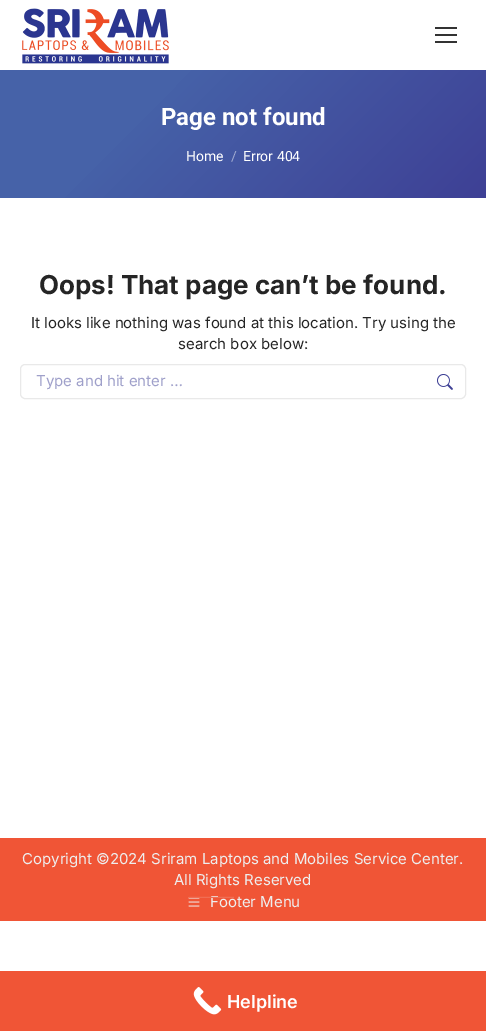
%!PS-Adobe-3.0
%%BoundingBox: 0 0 486 1031
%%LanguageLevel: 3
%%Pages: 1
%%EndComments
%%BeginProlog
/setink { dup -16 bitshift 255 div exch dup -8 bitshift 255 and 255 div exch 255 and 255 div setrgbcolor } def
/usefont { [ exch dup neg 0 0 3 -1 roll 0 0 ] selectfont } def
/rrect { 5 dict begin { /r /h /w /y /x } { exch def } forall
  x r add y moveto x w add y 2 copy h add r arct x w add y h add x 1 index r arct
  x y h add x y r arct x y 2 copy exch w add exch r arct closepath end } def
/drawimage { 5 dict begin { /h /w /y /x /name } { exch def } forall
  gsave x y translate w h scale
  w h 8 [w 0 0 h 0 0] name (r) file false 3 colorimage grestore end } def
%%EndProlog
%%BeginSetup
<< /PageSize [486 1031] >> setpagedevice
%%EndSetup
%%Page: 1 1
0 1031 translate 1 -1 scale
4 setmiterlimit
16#FFFFFF setink
0 0 486 1031 rectfill
(img1.raw) 22 8 147 56 drawimage
[
    [435 27 22 2 16#333333]
    [435 34 22 2 16#333333]
    [435 41 22 2 16#333333]
] { aload pop setink rectfill } forall
gsave 0 70 moveto 486 70 lineto 486 198 lineto 0 198 lineto closepath clip newpath
<< /ShadingType 2 /ColorSpace /DeviceRGB /Coords [89 -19 397 288] /Extend [true true] /Function << /FunctionType 3 /Domain [0 1] /Functions [<< /FunctionType 2 /Domain [0 1] /C0 [0.275 0.384 0.659] /C1 [0.275 0.384 0.659] /N 1 >> << /FunctionType 2 /Domain [0 1] /C0 [0.275 0.384 0.659] /C1 [0.243 0.251 0.584] /N 1 >>] /Bounds [0.3] /Encode [0 1 0 1] >> >> shfill grestore
/Roboto-Bold 24 usefont
16#FFFFFF setink
161 125 moveto (Page not found) show
/Roboto-Regular 14 usefont
186 161 moveto (Home) show
16#A1ABD1 setink
231 161 moveto (/) show
16#FFFFFF setink
243 161 moveto (Error 404) show
/Inter-Bold 26 usefont
16#252525 setink
39 294 moveto (Oops! That page can’t be found.) show
/Inter-Regular 15 usefont
31 328 moveto (It looks like nothing was found at this location. Try using the) show
178 349 moveto (search box below:) show
16#E9E9E9 setink
20.5 364.5 445 34 4.5 rrect stroke
16#9FA0CA setink
36 386 moveto (Type and hit enter …) show
(img2.raw) 437 374 16 16 drawimage
16#F05536 setink
0 838 486 83 rectfill
16#EEEEEE setink
22 864 moveto (Copyright ©2024 Sriram Laptops and Mobiles Service Center.) show
174 885 moveto (All Rights Reserved) show
(img3.raw) 188 897 12 10 drawimage
210 907 moveto (Footer Menu) show
16#F06D53 setink
189 902 moveto (———) show
16#F05536 setink
0 971 486 60 rectfill
(img4.raw) 193 987 29 28 drawimage
/Inter-SemiBold 18 usefont
16#FFFFFF setink
227 1008 moveto (Helpline) show
showpage
%%EOF
